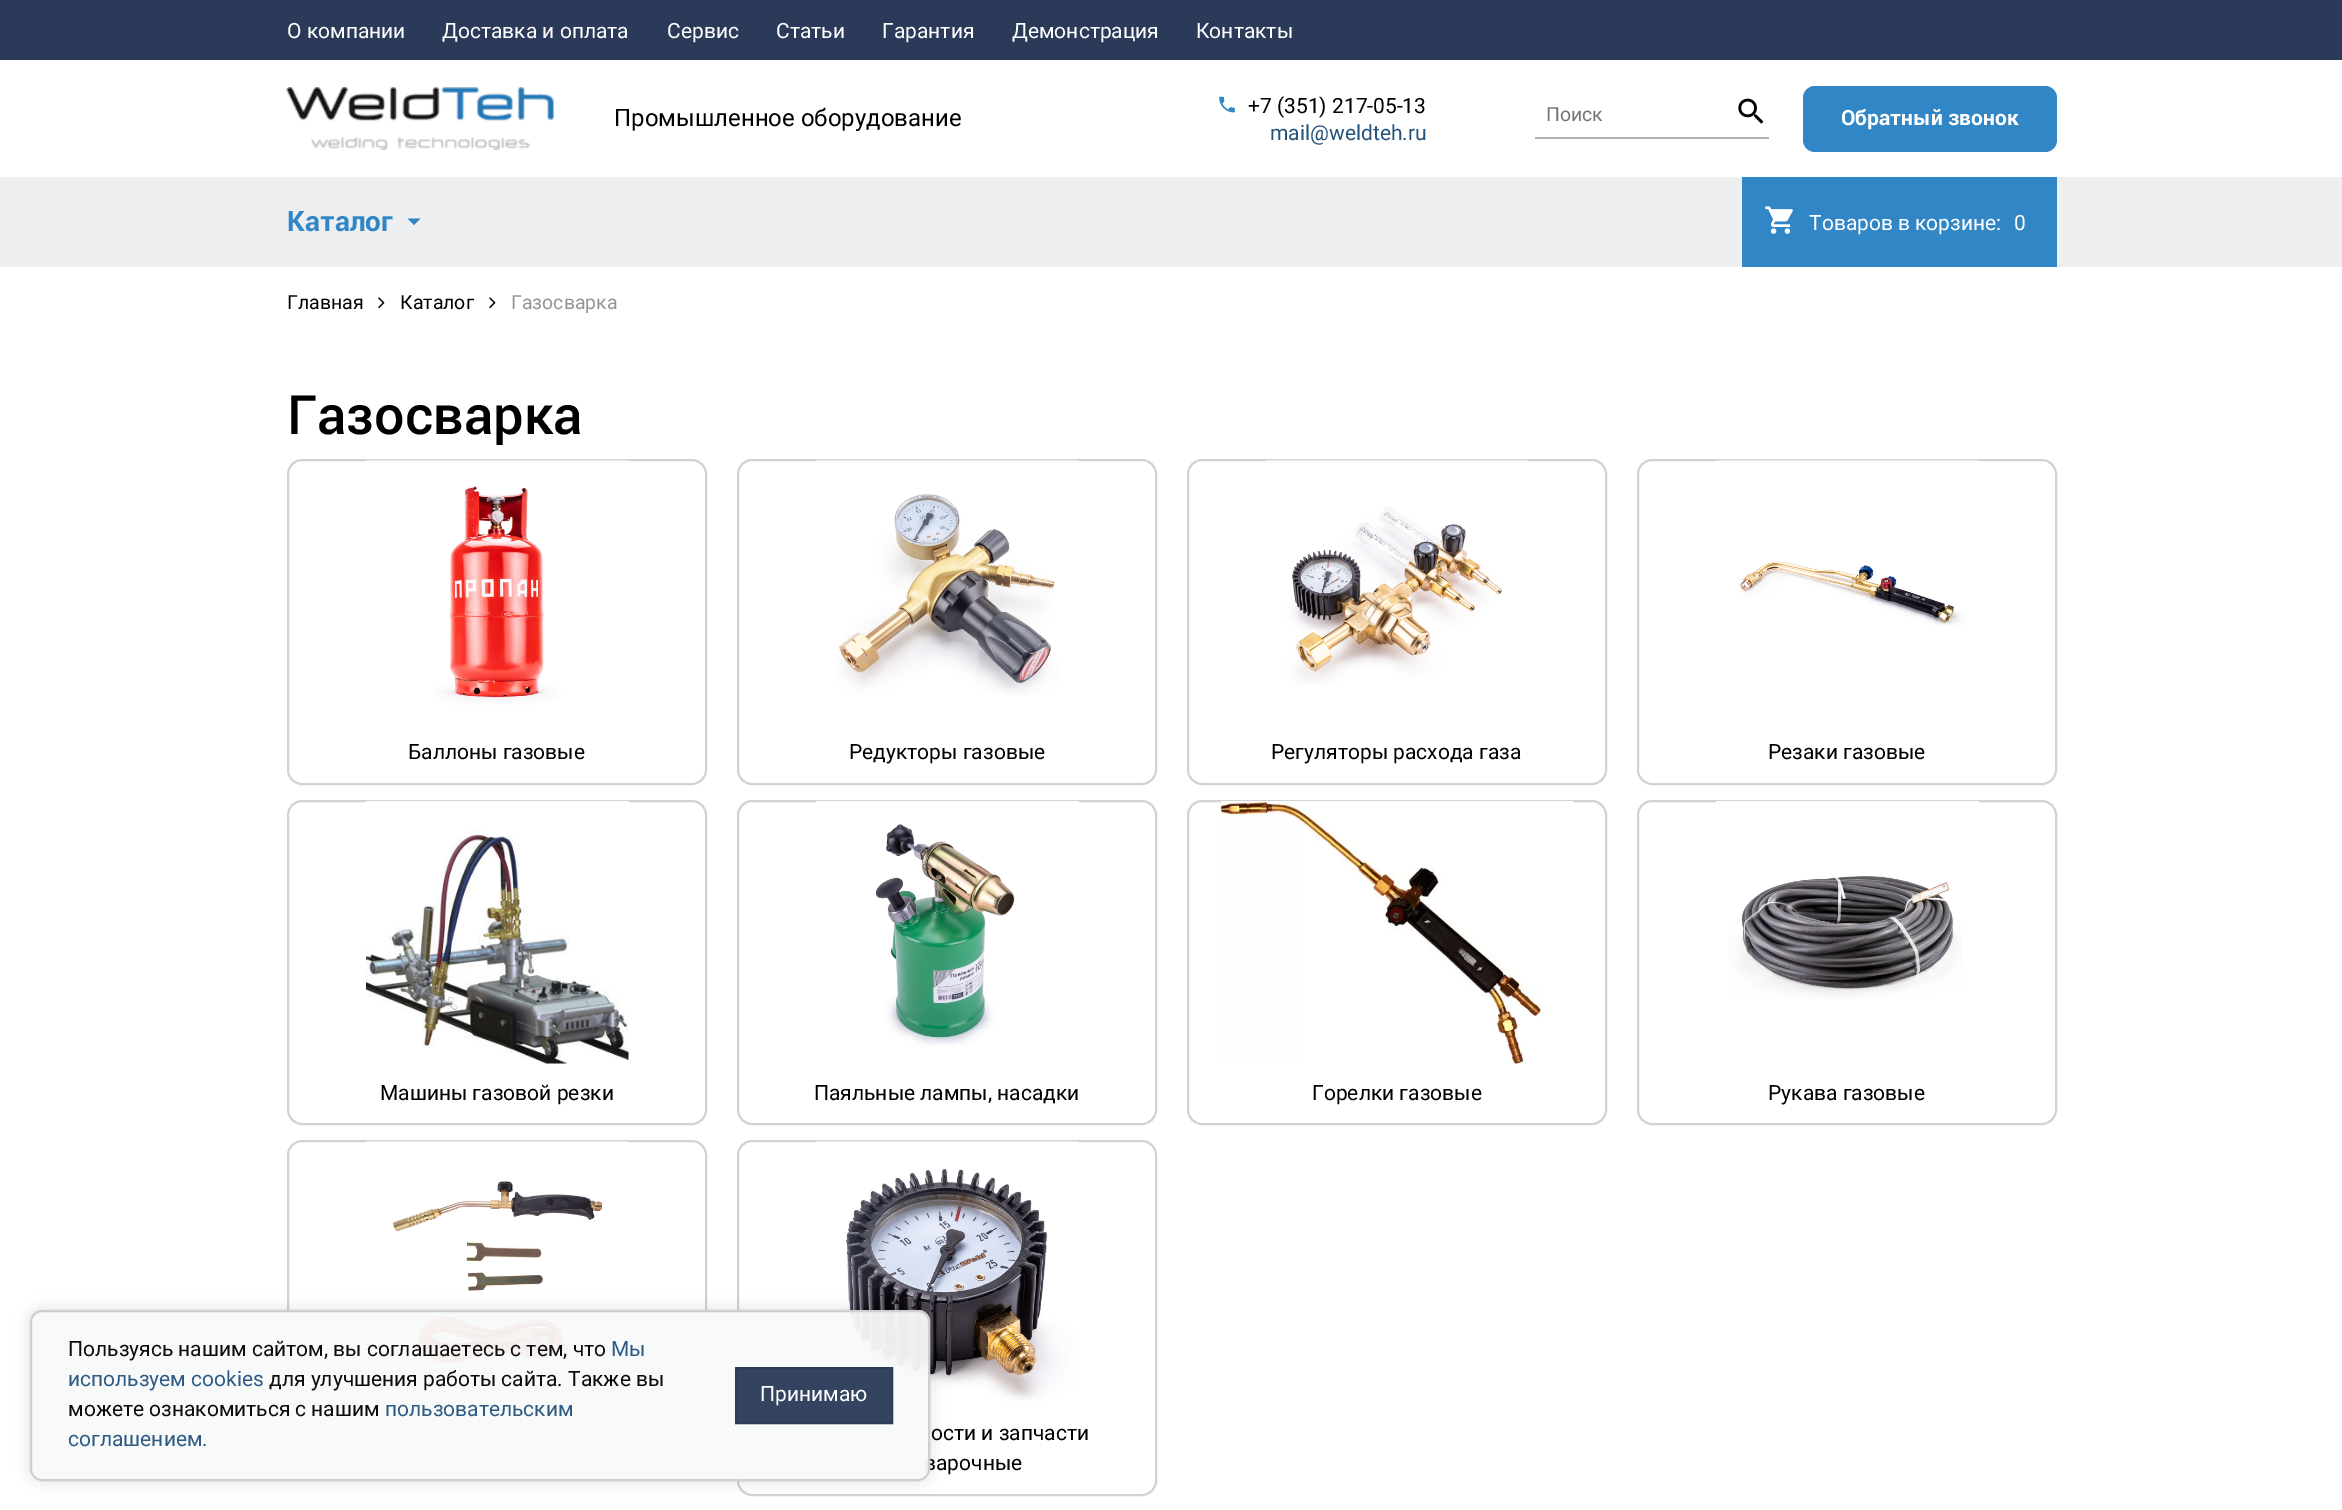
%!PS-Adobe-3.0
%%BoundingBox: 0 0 2342 1510
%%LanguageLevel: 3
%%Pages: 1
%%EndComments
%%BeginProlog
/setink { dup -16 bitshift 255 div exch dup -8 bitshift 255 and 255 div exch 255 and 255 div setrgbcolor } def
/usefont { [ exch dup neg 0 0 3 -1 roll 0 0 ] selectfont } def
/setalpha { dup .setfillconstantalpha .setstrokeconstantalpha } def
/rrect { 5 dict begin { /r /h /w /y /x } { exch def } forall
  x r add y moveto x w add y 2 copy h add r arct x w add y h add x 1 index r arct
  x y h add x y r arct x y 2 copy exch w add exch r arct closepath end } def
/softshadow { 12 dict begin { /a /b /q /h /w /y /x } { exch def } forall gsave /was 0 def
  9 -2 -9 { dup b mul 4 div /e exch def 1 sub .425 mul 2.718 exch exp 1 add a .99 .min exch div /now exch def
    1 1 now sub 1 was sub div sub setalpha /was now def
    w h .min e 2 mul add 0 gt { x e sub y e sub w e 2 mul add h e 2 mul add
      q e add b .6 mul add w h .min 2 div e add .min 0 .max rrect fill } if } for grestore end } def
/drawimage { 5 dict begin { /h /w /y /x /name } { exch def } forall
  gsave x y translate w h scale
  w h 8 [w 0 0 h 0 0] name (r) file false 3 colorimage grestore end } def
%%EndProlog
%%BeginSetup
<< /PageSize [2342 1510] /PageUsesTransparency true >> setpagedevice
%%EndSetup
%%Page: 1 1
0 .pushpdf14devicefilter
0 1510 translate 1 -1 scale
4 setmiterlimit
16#FFFFFF setink
0 0 2342 1510 rectfill
16#2A3A58 setink
0 0 2342 60 rectfill
/Roboto-Regular 21 usefont
16#FFFFFF setink
[
    [(О компании) 287 38]
    [(Доставка и оплата) 442 38]
    [(Сервис) 667 38]
    [(Статьи) 776 38]
    [(Гарантия) 882 38]
    [(Демонстрация) 1012 38]
    [(Контакты) 1196 38]
] { aload pop moveto show } forall
(img1.raw) 286 87 268 63 drawimage
/Roboto-Regular 24 usefont
16#000000 setink
614 126 moveto (Промышленное оборудование) show
(img2.raw) 1219 96 16 17 drawimage
/Roboto-Regular 21 usefont
1248 113 moveto (+7 \(351\) 217-05-13) show
16#23527C setink
1270 140 moveto (mail@weldteh.ru) show
16#AEAEAE setink
1535 137 234 2 rectfill
/Roboto-Regular 19.5 usefont
16#757575 setink
1546 121 moveto (Поиск) show
(img3.raw) 1738 98 26 26 drawimage
16#3186C6 setink
1803 86 254 66 12 rrect fill
/roboto-Bold 21 usefont
16#FFFFFF setink
1841 125 moveto (Обратный звонок) show
16#EDEFF1 setink
0 177 2342 90 rectfill
/roboto-Bold 28 usefont
16#3186C6 setink
287 231 moveto (Каталог) show
407.5 218.5 moveto 414 225 lineto 420.5 218.5 lineto closepath fill
1742 177 315 90 rectfill
(img4.raw) 1765 206 28 28 drawimage
/Roboto-Regular 21 usefont
16#FFFFFF setink
1809 230 moveto (Товаров в корзине:) show
2014 230 moveto (0) show
/Roboto-Regular 19.5 usefont
16#000000 setink
287 309 moveto (Главная) show
(img5.raw) 378 297 7 12 drawimage
400 309 moveto (Каталог) show
(img5.raw) 489 297 7 12 drawimage
16#949494 setink
511 309 moveto (Газосварка) show
/Roboto-Medium 54 usefont
16#000000 setink
287 434 moveto (Газосварка) show
16#D2D2D2 setink
2 setlinewidth
288 460 418 324 14 rrect stroke
(img6.raw) 366 460 263 245 drawimage
/Roboto-Regular 21 usefont
16#000000 setink
408 759 moveto (Баллоны газовые) show
16#D2D2D2 setink
738 460 418 324 14 rrect stroke
(img7.raw) 816 460 263 236 drawimage
16#000000 setink
849 759 moveto (Редукторы газовые) show
16#D2D2D2 setink
1188 460 418 324 14 rrect stroke
(img8.raw) 1266 460 263 226 drawimage
16#000000 setink
1271 759 moveto (Регуляторы расхода газа) show
16#D2D2D2 setink
1638 460 418 324 14 rrect stroke
(img9.raw) 1716 460 263 166 drawimage
16#000000 setink
1768 759 moveto (Резаки газовые) show
16#D2D2D2 setink
288 801 418 323 14 rrect stroke
(img10.raw) 366 801 263 263 drawimage
16#000000 setink
380 1100 moveto (Машины газовой резки) show
16#D2D2D2 setink
738 801 418 323 14 rrect stroke
(img11.raw) 816 801 263 245 drawimage
16#000000 setink
814 1100 moveto (Паяльные лампы, насадки) show
16#D2D2D2 setink
1188 801 418 323 14 rrect stroke
(img12.raw) 1221 801 353 263 drawimage
16#000000 setink
1312 1100 moveto (Горелки газовые) show
16#D2D2D2 setink
1638 801 418 323 14 rrect stroke
(img13.raw) 1716 801 263 199 drawimage
16#000000 setink
1768 1100 moveto (Рукава газовые) show
16#D2D2D2 setink
288 1141 418 324 14 rrect stroke
(img14.raw) 366 1141 263 223 drawimage
738 1141 418 354 14 rrect stroke
(img15.raw) 816 1141 263 260 drawimage
16#000000 setink
931 1440 moveto (ости и запчасти) show
924 1470 moveto (варочные) show
gsave
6 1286 moveto 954 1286 lineto 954 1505 lineto 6 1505 lineto closepath 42 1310 moveto 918 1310 lineto 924.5 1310 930 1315.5 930 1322 curveto 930 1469 lineto 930 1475.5 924.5 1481 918 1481 curveto 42 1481 lineto 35.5 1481 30 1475.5 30 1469 curveto 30 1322 lineto 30 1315.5 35.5 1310 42 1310 curveto closepath eoclip newpath
30 1310 900 171 12 7.5 0.14 softshadow
grestore
0.95 setalpha
16#F8F9F9 setink
30 1310 900 171 12 rrect fill
16#CCCCCC setink
31 1311 898 169 11 rrect stroke
1 setalpha
16#0C0C0C setink
68 1356 moveto (Пользуясь нашим сайтом, вы соглашаетесь с тем, что) show
16#2E5B83 setink
611 1356 moveto (Мы) show
68 1386 moveto (используем cookies) show
16#0C0C0C setink
[
    [(для улучшения работы сайта. Также вы) 269 1386]
    [(можете ознакомиться) 68 1416]
    [(с нашим) 295 1416]
] { aload pop moveto show } forall
16#2E5B83 setink
385 1416 moveto (пользовательским) show
68 1446 moveto (соглашением.) show
16#344460 setink
736 1368 moveto 892 1368 lineto 892 1423 lineto 736 1423 lineto closepath gsave fill grestore
16#2B3B58 setink
stroke
16#FFFFFF setink
760 1401 moveto (Принимаю) show
.poppdf14devicefilter showpage
%%EOF
